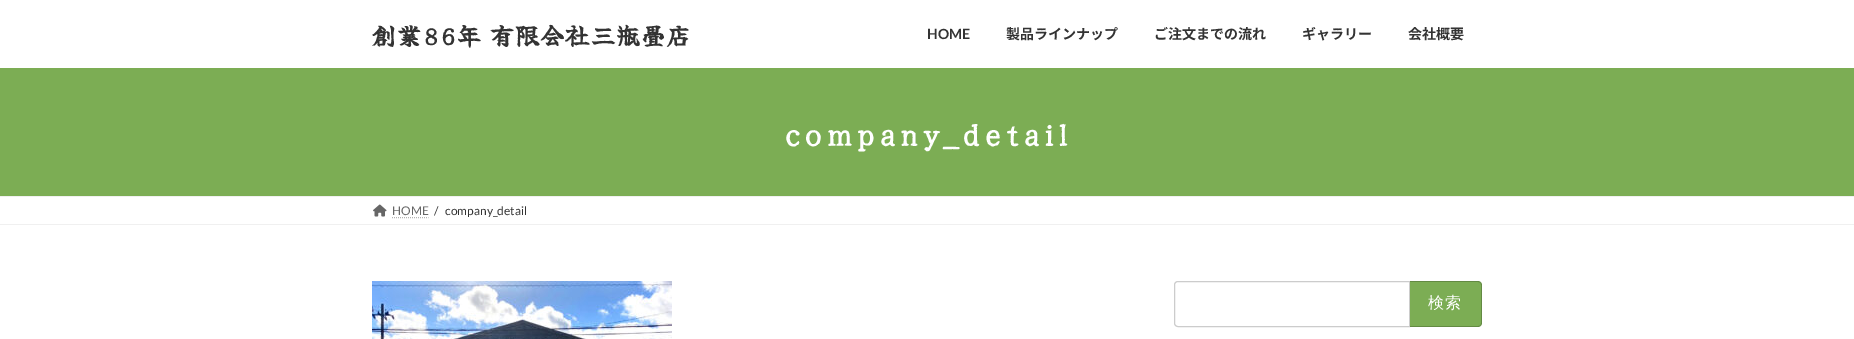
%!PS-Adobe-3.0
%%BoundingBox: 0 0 1854 339
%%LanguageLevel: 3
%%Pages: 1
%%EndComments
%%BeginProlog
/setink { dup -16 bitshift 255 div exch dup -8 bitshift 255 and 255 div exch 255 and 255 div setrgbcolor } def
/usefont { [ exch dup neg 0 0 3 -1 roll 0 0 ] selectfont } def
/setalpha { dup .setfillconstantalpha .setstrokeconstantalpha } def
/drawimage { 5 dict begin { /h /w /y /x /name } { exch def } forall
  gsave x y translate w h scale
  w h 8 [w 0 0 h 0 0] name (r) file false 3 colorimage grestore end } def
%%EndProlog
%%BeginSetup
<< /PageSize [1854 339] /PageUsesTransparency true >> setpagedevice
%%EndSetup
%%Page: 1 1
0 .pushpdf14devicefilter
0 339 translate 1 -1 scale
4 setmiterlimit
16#FFFFFF setink
0 0 1854 339 rectfill
/YujiSyuku-Bold 24 usefont
16#333333 setink
372 45 moveto 1.25 0 (創業86年 有限会社三瓶畳店) ashow
/Lato-Bold 14 usefont
927 39 moveto (HOME) show
/NotoSansJP-Bold 14 usefont
[
    [(製品ラインナップ) 1006 39]
    [(ご注文までの流れ) 1154 39]
    [(ギャラリー) 1302 39]
    [(会社概要) 1408 39]
] { aload pop moveto show } forall
16#7CAD54 setink
0 68 1854 128 rectfill
/YujiSyuku-Bold 32 usefont
16#FFFFFF setink
783 146 moveto 1.6 0 (company_detail) ashow
16#F0F0F0 setink
0 196 1854 1 rectfill
0 224 1854 1 rectfill
(img1.raw) 373 204 14 13 drawimage
/Lato-Regular 12 usefont
16#666666 setink
392 215 moveto (HOME) show
16#B3B3B3 setink
[1 1] 0 setdash
392 217.5 moveto 428.5 217.5 lineto stroke
16#333333 setink
434 215 moveto (/) show
445 215 moveto (company_detail) show
(img2.raw) 372 281 300 58 drawimage
16#CCCCCC setink
[] 0 setdash
1178 281.5 moveto 1409.5 281.5 lineto 1409.5 326.5 lineto 1178 326.5 lineto 1176 326.5 1174.5 325 1174.5 323 curveto 1174.5 285 lineto 1174.5 283 1176 281.5 1178 281.5 curveto closepath stroke
16#7CAD54 setink
1410 281 moveto 1478 281 lineto 1480 281 1482 283 1482 285 curveto 1482 323 lineto 1482 325 1480 327 1478 327 curveto 1410 327 lineto closepath fill
0.2 setalpha
16#000000 setink
1410 281 moveto 1478 281 lineto 1480 281 1482 283 1482 285 curveto 1482 323 lineto 1482 325 1480 327 1478 327 curveto 1410 327 lineto closepath 1410 282 moveto 1478 282 lineto 1480 282 1481 283 1481 285 curveto 1481 323 lineto 1481 325 1480 326 1478 326 curveto 1410 326 lineto closepath eofill
/WenQuanYiZenHei-Medium 16 usefont
1 setalpha
16#FFFFFF setink
1428 308 moveto 1 0 (検索) ashow
.poppdf14devicefilter showpage
%%EOF
